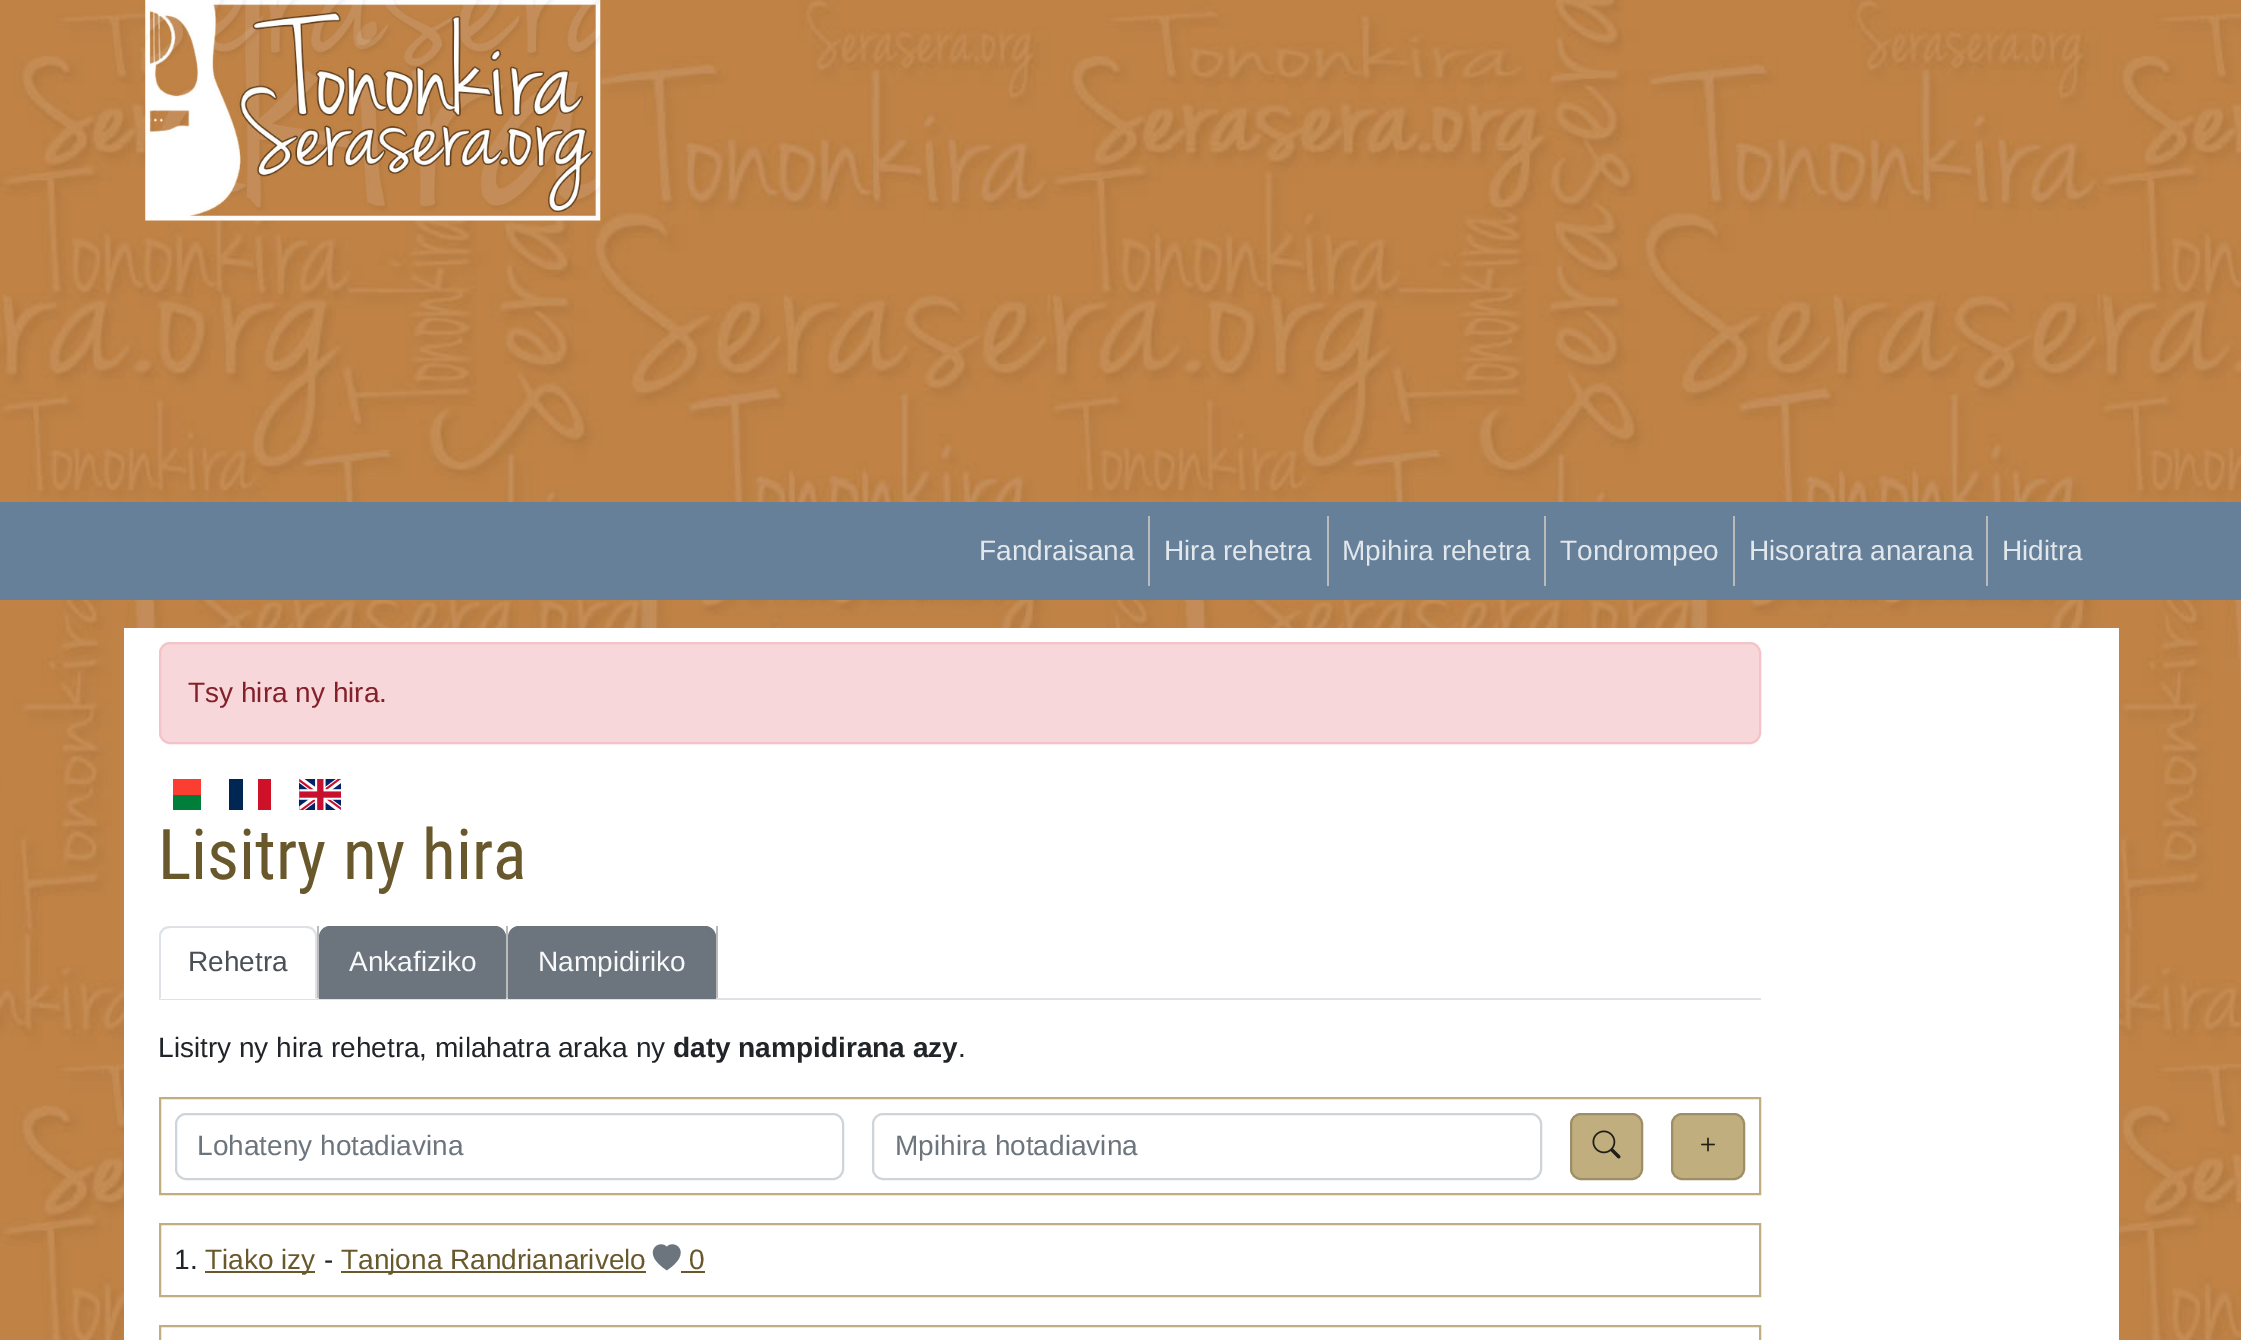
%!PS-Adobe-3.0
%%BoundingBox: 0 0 2241 1340
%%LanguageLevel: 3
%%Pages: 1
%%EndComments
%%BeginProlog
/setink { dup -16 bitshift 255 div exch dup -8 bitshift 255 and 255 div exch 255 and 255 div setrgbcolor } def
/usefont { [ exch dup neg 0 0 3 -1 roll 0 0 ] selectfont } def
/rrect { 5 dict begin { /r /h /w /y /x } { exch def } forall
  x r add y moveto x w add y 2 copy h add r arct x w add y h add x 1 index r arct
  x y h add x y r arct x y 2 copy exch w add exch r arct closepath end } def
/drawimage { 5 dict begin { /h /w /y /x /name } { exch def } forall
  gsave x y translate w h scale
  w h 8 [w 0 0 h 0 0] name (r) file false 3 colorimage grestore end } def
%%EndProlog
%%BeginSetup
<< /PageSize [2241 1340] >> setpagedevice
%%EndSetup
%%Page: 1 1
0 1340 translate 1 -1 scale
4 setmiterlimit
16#FFFFFF setink
0 0 2241 1340 rectfill
(img1.raw) 0 0 2241 1340 drawimage
(img2.raw) 145 0 456 221 drawimage
16#668099 setink
0 502 2241 98 rectfill
16#BABABA setink
1148 516 2 70 rectfill
/LiberationSans-Regular 28 usefont
16#E2E7EC setink
979 560 moveto (Fandraisana) show
16#BABABA setink
1327 516 2 70 rectfill
16#E2E7EC setink
1164 560 moveto (Hira rehetra) show
16#BABABA setink
1544 516 2 70 rectfill
16#E2E7EC setink
1342 560 moveto (Mpihira rehetra) show
16#BABABA setink
1733 516 2 70 rectfill
16#E2E7EC setink
1560 560 moveto (Tondrompeo) show
16#BABABA setink
1986 516 2 70 rectfill
16#E2E7EC setink
1749 560 moveto (Hisoratra anarana) show
2002 560 moveto (Hiditra) show
16#FFFFFF setink
124 628 1995 712 rectfill
16#F8D7DA setink
160 643 1600 100 10 rrect gsave fill grestore
16#F5C2C7 setink
2 setlinewidth
stroke
16#842029 setink
188 702 moveto (Tsy hira ny hira.) show
[
    [173 779 28 16 16#FC3D32]
    [173 795 28 15 16#007E3A]
    [229 779 14 31 16#002654]
    [258 779 13 31 16#CE1126]
] { aload pop setink rectfill } forall
(img3.raw) 299 779 42 31 drawimage
/RobotoCondensed-Regular 70 usefont
16#69582B setink
158 879 moveto (Lisitry ny hira) show
16#DEE2E6 setink
159 998 1602 2 rectfill
16#BABABA setink
317 926 2 72 rectfill
16#FFFFFF setink
170 926 moveto 306 926 lineto 312 926 317 931 317 937 curveto 317 999 lineto 159 999 lineto 159 937 lineto 159 931 164 926 170 926 curveto closepath fill
16#DEE2E6 setink
170 926 moveto 167 926 164 927 162 929 curveto 164 930 lineto 165 929 168 928 170 928 curveto 306 928 lineto 308 928 311 929 312 930 curveto 314 929 lineto 312 927 309 926 306 926 curveto closepath fill
314 929 moveto 315 930 316 932 317 934 curveto 317 999 lineto 315 998 lineto 315 936 lineto 315 934 314 932 312 930 curveto closepath fill
16#FFFFFF setink
316 999 moveto 160 999 lineto 161 998 lineto 315 998 lineto closepath fill
16#DEE2E6 setink
159 934 moveto 160 932 161 930 162 929 curveto 164 930 lineto 162 932 161 934 161 936 curveto 161 998 lineto 159 999 lineto closepath fill
/LiberationSans-Regular 28 usefont
16#495057 setink
188 971 moveto (Rehetra) show
16#BABABA setink
506 926 2 72 rectfill
16#6C757D setink
330 926 moveto 495 926 lineto 501 926 506 931 506 937 curveto 506 999 lineto 319 999 lineto 319 937 lineto 319 931 324 926 330 926 curveto closepath fill
16#F8F9FA setink
349 971 moveto (Ankafiziko) show
16#BABABA setink
716 926 2 72 rectfill
16#6C757D setink
519 926 moveto 705 926 lineto 711 926 716 931 716 937 curveto 716 999 lineto 508 999 lineto 508 937 lineto 508 931 513 926 519 926 curveto closepath fill
16#F8F9FA setink
538 971 moveto (Nampidiriko) show
16#212529 setink
158 1057 moveto (Lisitry ny hira rehetra, milahatra araka ny) show
/LiberationSans-Bold 28 usefont
673 1057 moveto (daty nampidirana azy) show
/LiberationSans-Regular 28 usefont
958 1057 moveto (.) show
16#C0AE7F setink
160 1098 1600 96 rectstroke
16#CED4DA setink
176 1114 667 65 10 rrect stroke
16#6C757D setink
197 1155 moveto (Lohateny hotadiavina) show
16#CED4DA setink
873 1114 668 65 10 rrect stroke
16#6C757D setink
895 1155 moveto (Mpihira hotadiavina) show
16#C0AE7F setink
1571 1114 71 65 10 rrect gsave fill grestore
16#9E8E67 setink
stroke
(img4.raw) 1592 1130 29 29 drawimage
16#C0AE7F setink
1672 1114 72 65 10 rrect gsave fill grestore
16#9E8E67 setink
stroke
(img5.raw) 1701 1137 14 15 drawimage
16#C0AE7F setink
160 1224 1600 72 rectstroke
16#212529 setink
174 1269 moveto (1.) show
16#69582B setink
205 1271 110 2 rectfill
205 1269 moveto (Tiako izy) show
16#212529 setink
324 1269 moveto (-) show
16#69582B setink
341 1271 305 2 rectfill
341 1269 moveto (Tanjona Randrianarivelo) show
(img6.raw) 652 1244 29 27 drawimage
689 1269 moveto (0) show
681 1271 24 2 rectfill
16#C0AE7F setink
160 1326 1600 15 rectstroke
showpage
%%EOF
